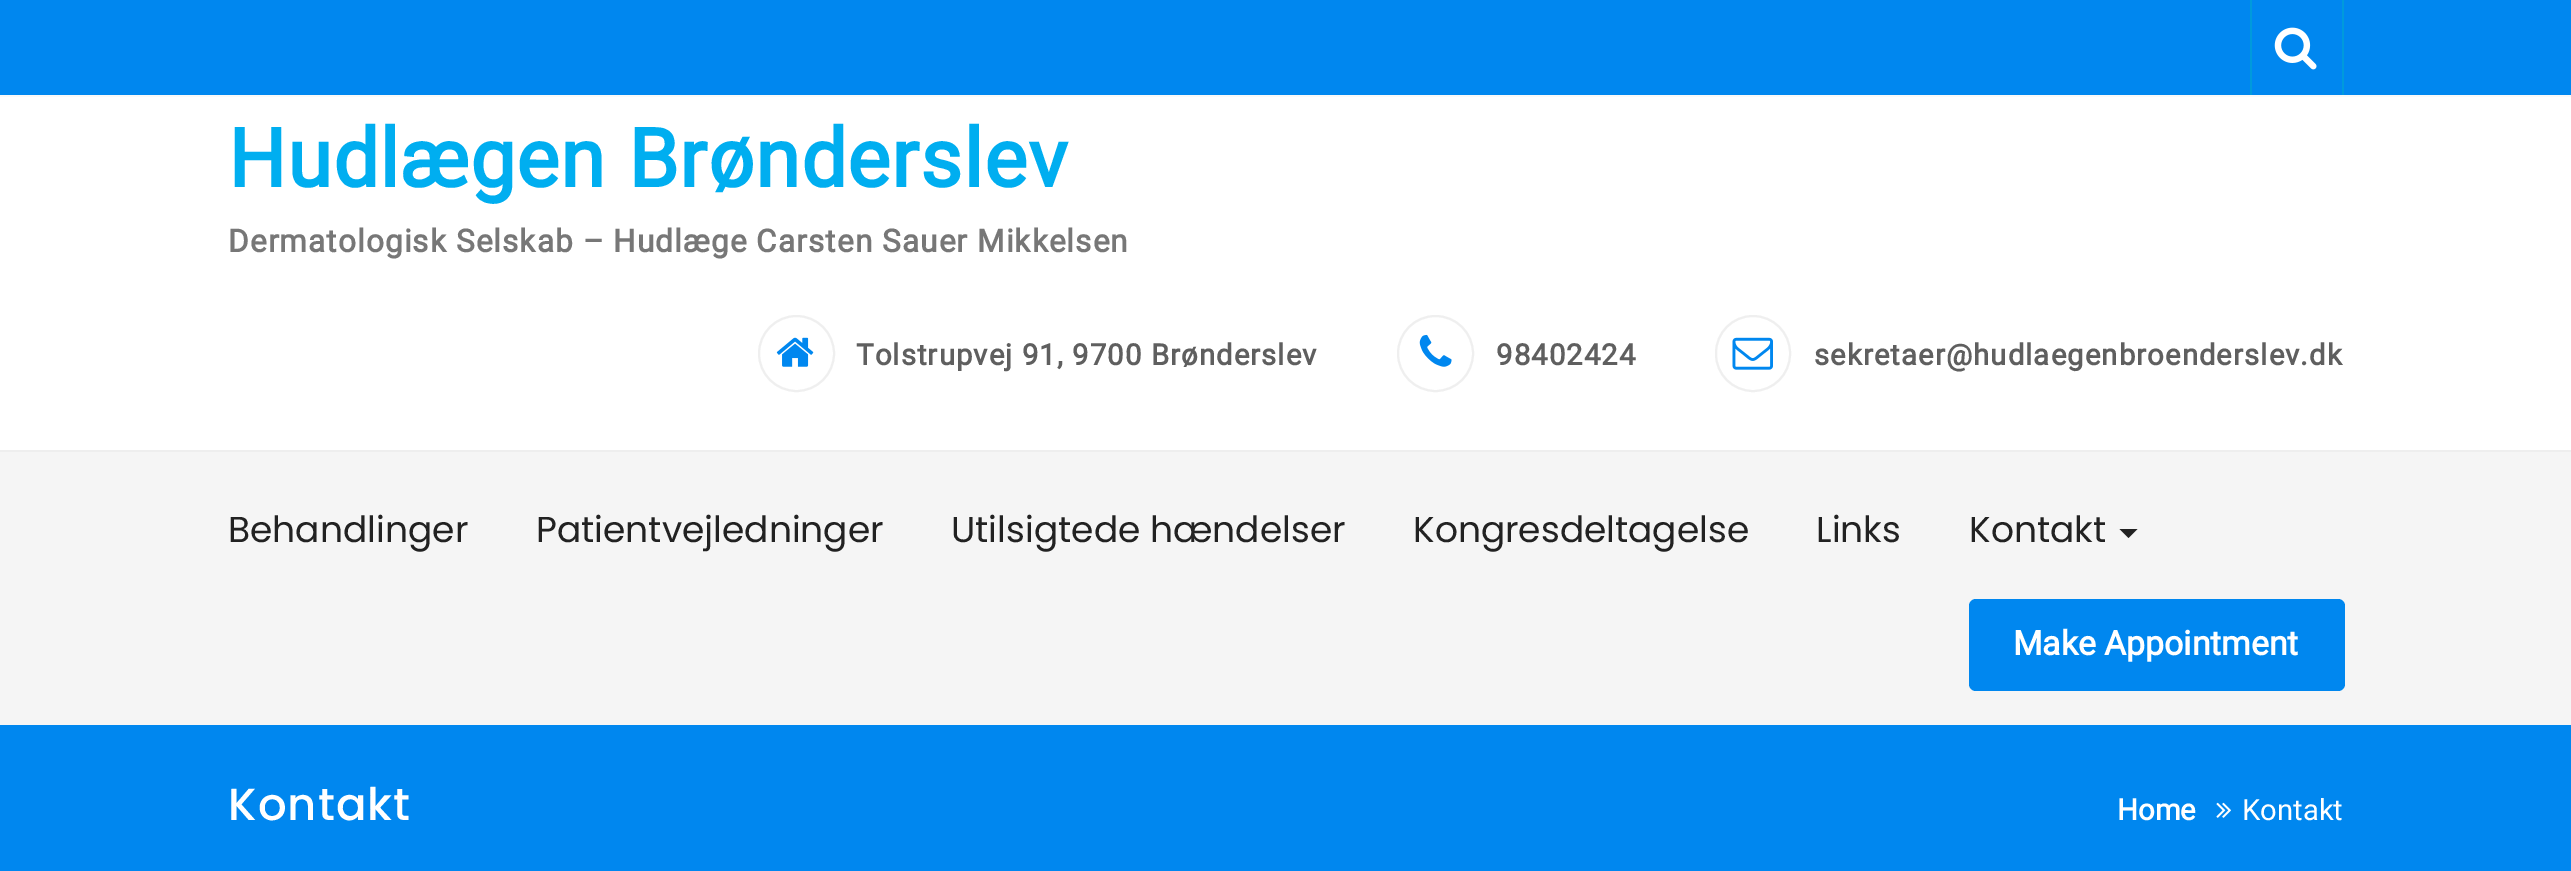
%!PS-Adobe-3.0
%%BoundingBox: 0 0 2571 871
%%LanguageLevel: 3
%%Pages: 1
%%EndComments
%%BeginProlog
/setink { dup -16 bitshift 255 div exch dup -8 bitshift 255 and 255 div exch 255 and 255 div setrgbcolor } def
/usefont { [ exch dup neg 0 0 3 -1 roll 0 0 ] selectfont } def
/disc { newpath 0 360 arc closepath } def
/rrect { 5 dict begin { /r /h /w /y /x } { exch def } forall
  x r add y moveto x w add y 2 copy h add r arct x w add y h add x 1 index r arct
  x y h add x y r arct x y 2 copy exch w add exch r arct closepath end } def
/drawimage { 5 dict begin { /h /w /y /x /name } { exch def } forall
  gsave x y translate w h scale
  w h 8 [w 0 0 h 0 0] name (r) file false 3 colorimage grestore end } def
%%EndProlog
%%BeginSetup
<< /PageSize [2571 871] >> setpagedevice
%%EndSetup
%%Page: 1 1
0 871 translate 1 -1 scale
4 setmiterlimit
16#FFFFFF setink
0 0 2571 871 rectfill
[
    [0 0 2571 95 16#0087EF]
    [0 95 2571 2 16#F9F9F9]
    [2342 0 2 95 16#009ADC]
    [2250 0 2 95 16#009ADC]
] { aload pop setink rectfill } forall
(img1.raw) 2274 27 43 43 drawimage
16#EEEEEE setink
0 450 2571 2 rectfill
/Roboto-Bold 81 usefont
16#00AEF0 setink
228 187 moveto 1.12 0 (Hudlægen Brønderslev) ashow
/Roboto-Bold 31.5 usefont
16#777777 setink
228 252 moveto 1.12 0 (Dermatologisk Selskab – Hudlæge Carsten Sauer Mikkelsen) ashow
16#EFEFEF setink
2 setlinewidth
796.5 353.5 37.5 disc stroke
(img2.raw) 776 337 38 30 drawimage
/Roboto-Bold 29.25 usefont
16#5F5F5F setink
856 365 moveto 1.12 0 (Tolstrupvej 91, 9700 Brønderslev) ashow
16#EFEFEF setink
1435.5 353.5 37.5 disc stroke
(img3.raw) 1419 334 33 33 drawimage
16#5F5F5F setink
1496 365 moveto 1.12 0 (98402424) ashow
16#EFEFEF setink
1716 316 74 75 37 rrect stroke
(img4.raw) 1732 337 41 33 drawimage
16#5F5F5F setink
1814 365 moveto 1.12 0 (sekretaer@hudlaegenbroenderslev.dk) ashow
16#F5F5F5 setink
0 452 2571 273 rectfill
/Poppins-Regular 36 usefont
16#222222 setink
[
    [(Behandlinger) 228 542]
    [(Patientvejledninger) 536 542]
    [(Utilsigtede hændelser) 951 542]
    [(Kongresdeltagelse) 1413 542]
    [(Links) 1816 542]
    [(Kontakt) 1969 542]
] { aload pop moveto show } forall
2119.5 529 moveto 2137.5 529 lineto 2128.5 538 lineto closepath fill
16#0087EF setink
1969 599 376 92 7 rrect fill
/Roboto-Bold 33.75 usefont
16#FFFFFF setink
2013 655 moveto (Make Appointment) show
16#0087EF setink
0 725 2571 146 rectfill
/Poppins-Medium 45 usefont
16#FFFFFF setink
228 820 moveto 1.12 0 (Kontakt) ashow
/Roboto-Bold 29.25 usefont
2117 820 moveto (Home) show
(img5.raw) 2216 802 15 16 drawimage
/Roboto-Regular 29.25 usefont
2242 820 moveto (Kontakt) show
showpage
%%EOF
